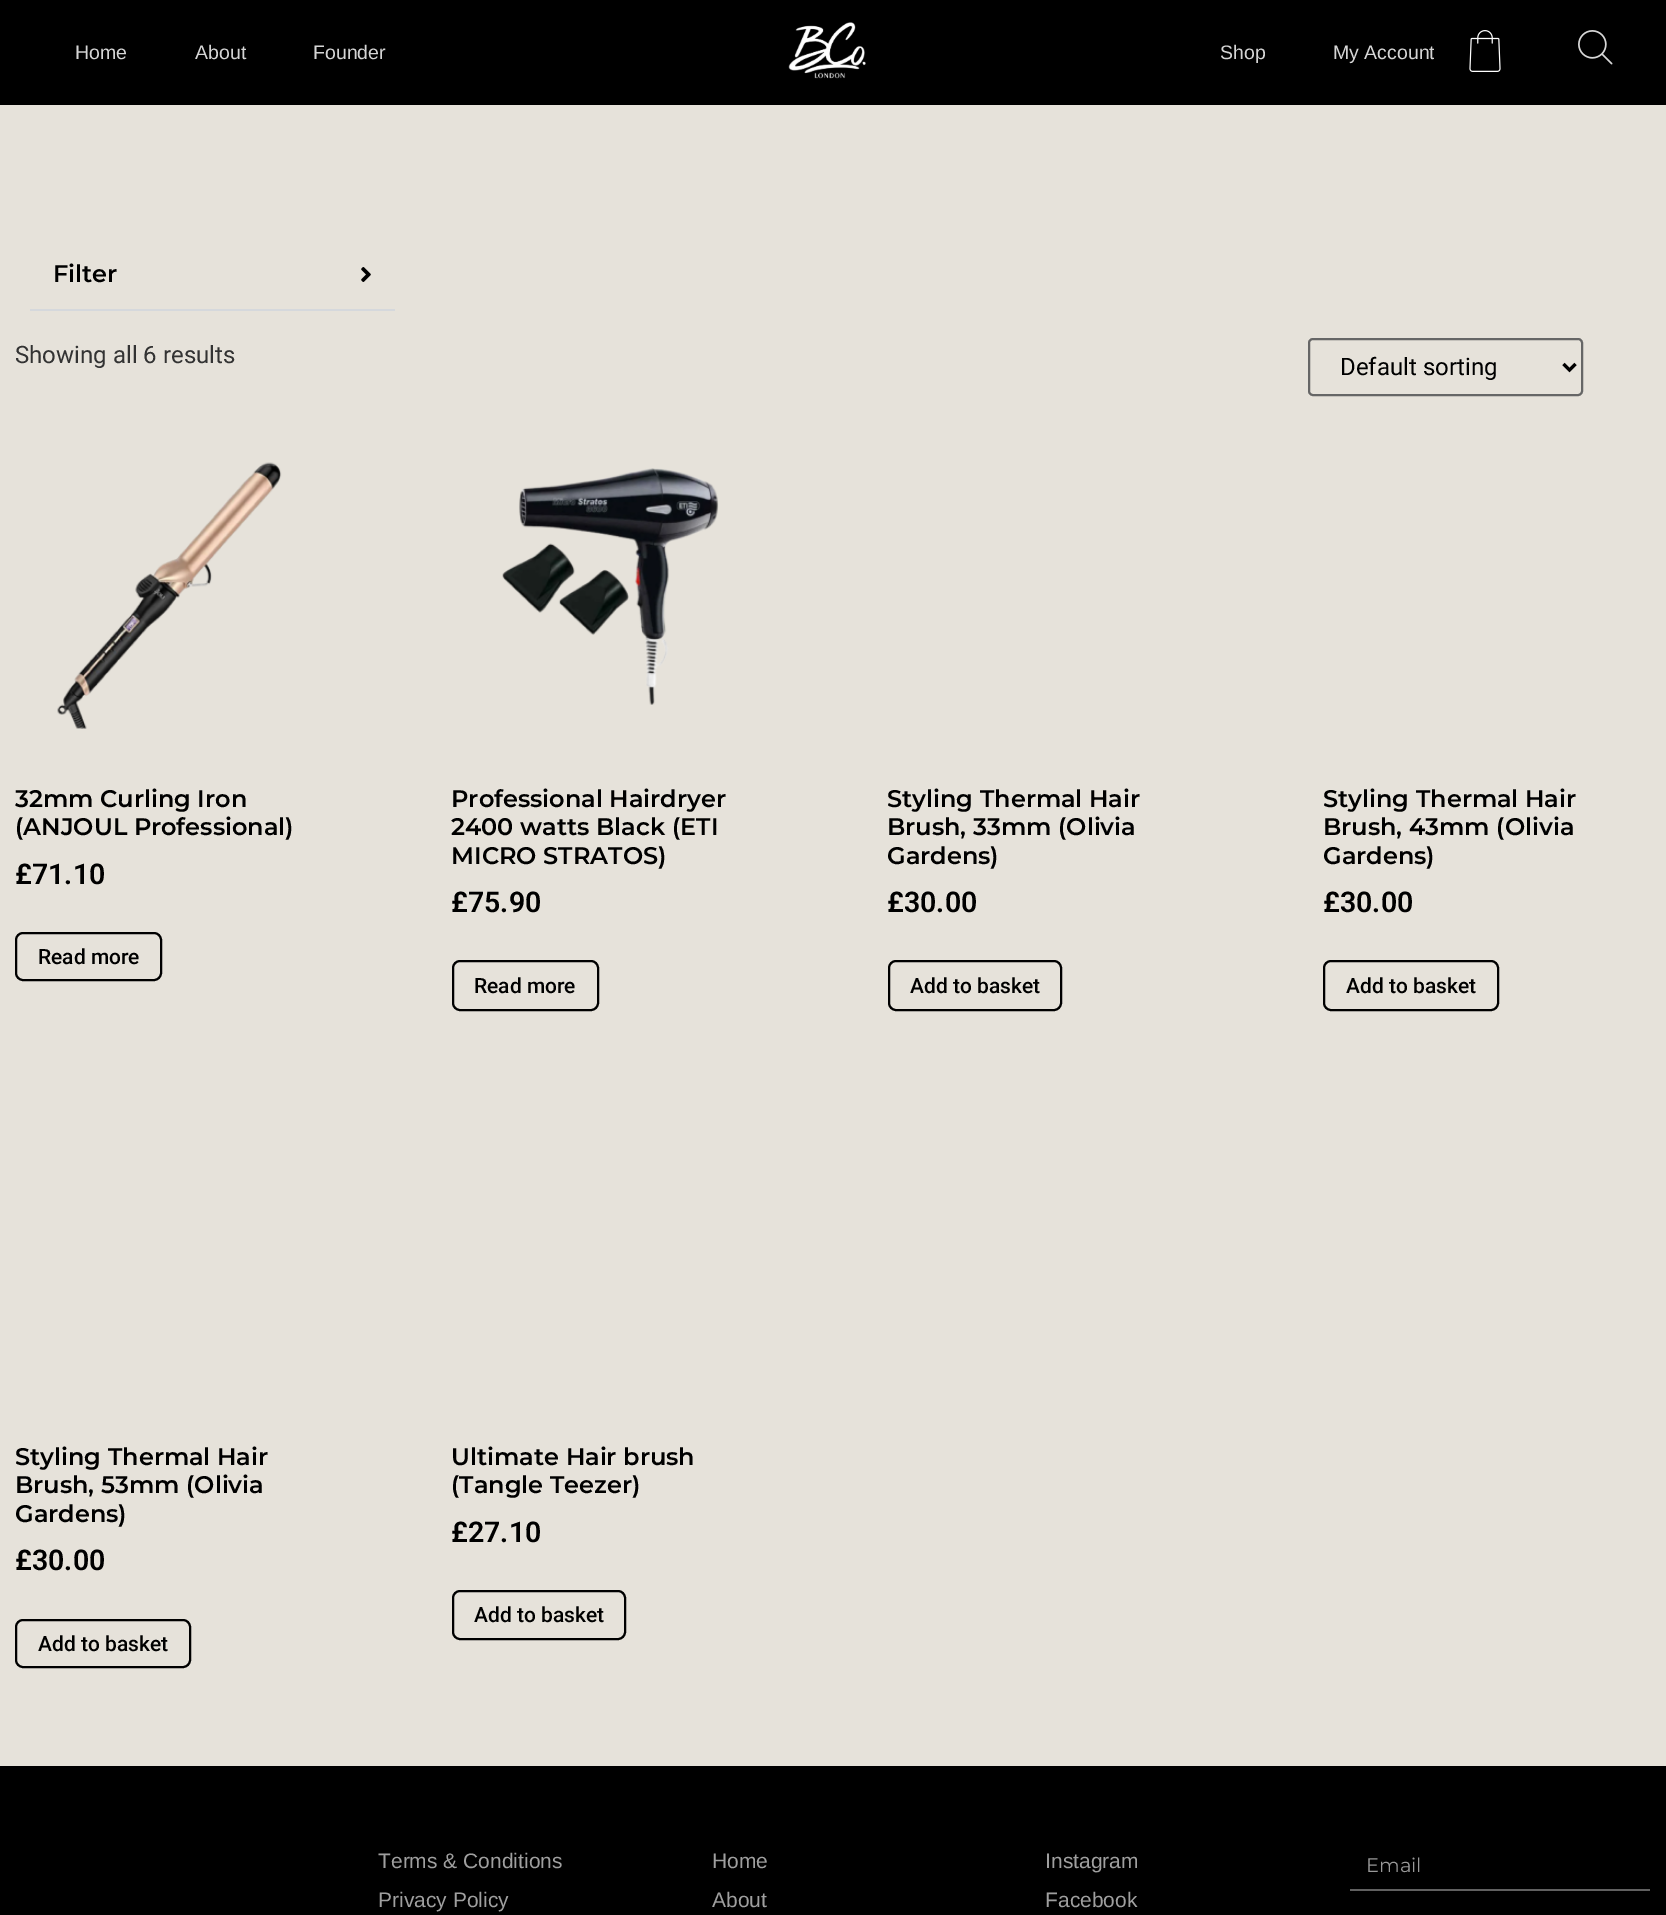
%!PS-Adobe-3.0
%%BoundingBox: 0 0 1666 1915
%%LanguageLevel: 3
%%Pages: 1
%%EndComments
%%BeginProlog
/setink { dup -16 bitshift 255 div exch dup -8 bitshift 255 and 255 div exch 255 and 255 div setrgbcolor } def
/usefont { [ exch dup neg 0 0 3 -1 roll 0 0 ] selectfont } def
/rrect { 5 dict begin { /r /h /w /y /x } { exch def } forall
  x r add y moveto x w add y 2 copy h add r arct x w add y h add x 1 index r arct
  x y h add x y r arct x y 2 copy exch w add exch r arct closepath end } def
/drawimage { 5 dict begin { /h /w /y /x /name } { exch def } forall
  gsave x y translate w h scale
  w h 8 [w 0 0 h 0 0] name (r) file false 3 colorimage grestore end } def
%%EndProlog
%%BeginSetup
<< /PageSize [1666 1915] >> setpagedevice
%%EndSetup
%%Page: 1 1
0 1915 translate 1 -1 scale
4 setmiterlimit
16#E6E2DA setink
0 0 1666 1915 rectfill
16#000000 setink
0 0 1666 105 rectfill
/LiberationSans-Regular 19.5 usefont
16#D5D5D5 setink
[
    [(Home) 75 59]
    [(About) 195 59]
    [(Founder) 313 59]
] { aload pop moveto show } forall
(img1.raw) 788 22 78 57 drawimage
1220 59 moveto (Shop) show
gsave
947 38 487 30 rectclip
1333 59 moveto (My Account) show
grestore
(img2.raw) 1469 30 32 42 drawimage
(img3.raw) 1578 30 35 35 drawimage
16#D5D8DC setink
30 309 365 2 rectfill
/Montserrat-SemiBold 24 usefont
16#000000 setink
53 282 moveto (Filter) show
(img4.raw) 361 267 10 15 drawimage
/Roboto-Regular 24 usefont
16#333333 setink
15 363 moveto (Showing all 6 results) show
16#666666 setink
2 setlinewidth
1309 339 273 56 4 rrect stroke
16#000000 setink
3 setlinewidth
1563.5 364 moveto 1569.5 370 lineto 1575.5 364 lineto stroke
1340 375 moveto (Default sorting) show
(img5.raw) 57 462 225 267 drawimage
/Montserrat-SemiBold 24 usefont
15 807 moveto (32mm Curling Iron) show
15 835 moveto (\(ANJOUL Professional\)) show
/Roboto-SemiBold 28.5 usefont
15 884 moveto (£71.10) show
2 setlinewidth
16 933 145 47 7 rrect stroke
/Roboto-Medium 21 usefont
38 964 moveto (Read more) show
(img6.raw) 502 468 217 237 drawimage
/Montserrat-SemiBold 24 usefont
[
    [(Professional Hairdryer) 451 807]
    [(2400 watts Black \(ETI) 451 835]
    [(MICRO STRATOS\)) 451 864]
] { aload pop moveto show } forall
/Roboto-SemiBold 28.5 usefont
451 912 moveto (£75.90) show
453 961 145 49 7 rrect stroke
/Roboto-Medium 21 usefont
474 993 moveto (Read more) show
/Montserrat-SemiBold 24 usefont
[
    [(Styling Thermal Hair) 887 807]
    [(Brush, 33mm \(Olivia) 887 835]
    [(Gardens\)) 887 864]
] { aload pop moveto show } forall
/Roboto-SemiBold 28.5 usefont
887 912 moveto (£30.00) show
889 961 172 49 7 rrect stroke
/Roboto-Medium 21 usefont
910 993 moveto (Add to basket) show
/Montserrat-SemiBold 24 usefont
[
    [(Styling Thermal Hair) 1323 807]
    [(Brush, 43mm \(Olivia) 1323 835]
    [(Gardens\)) 1323 864]
] { aload pop moveto show } forall
/Roboto-SemiBold 28.5 usefont
1323 912 moveto (£30.00) show
1324 961 174 49 7 rrect stroke
/Roboto-Medium 21 usefont
1346 993 moveto (Add to basket) show
/Montserrat-SemiBold 24 usefont
[
    [(Styling Thermal Hair) 15 1465]
    [(Brush, 53mm \(Olivia) 15 1493]
    [(Gardens\)) 15 1522]
] { aload pop moveto show } forall
/Roboto-SemiBold 28.5 usefont
15 1570 moveto (£30.00) show
16 1620 174 47 7 rrect stroke
/Roboto-Medium 21 usefont
38 1651 moveto (Add to basket) show
/Montserrat-SemiBold 24 usefont
451 1465 moveto (Ultimate Hair brush) show
451 1493 moveto (\(Tangle Teezer\)) show
/Roboto-SemiBold 28.5 usefont
451 1542 moveto (£27.10) show
453 1591 172 48 7 rrect stroke
/Roboto-Medium 21 usefont
474 1622 moveto (Add to basket) show
0 1766 1666 149 rectfill
/LiberationSans-Regular 21 usefont
16#9F9F9F setink
[
    [(Terms & Conditions) 378 1868]
    [(Privacy Policy) 378 1907]
    [(Home) 712 1868]
    [(About) 712 1907]
    [(Instagram) 1045 1868]
    [(Facebook) 1045 1907]
] { aload pop moveto show } forall
16#606060 setink
1350 1889 300 2 rectfill
/Montserrat-Regular 19.5 usefont
16#999999 setink
1366 1872 moveto (Email) show
showpage
%%EOF
